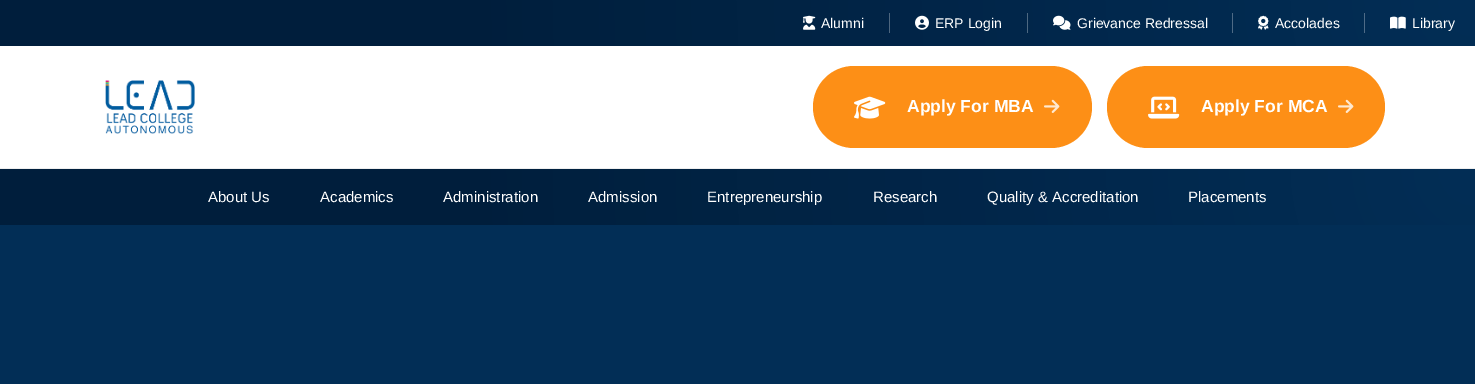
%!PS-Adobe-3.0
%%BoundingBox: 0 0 1475 384
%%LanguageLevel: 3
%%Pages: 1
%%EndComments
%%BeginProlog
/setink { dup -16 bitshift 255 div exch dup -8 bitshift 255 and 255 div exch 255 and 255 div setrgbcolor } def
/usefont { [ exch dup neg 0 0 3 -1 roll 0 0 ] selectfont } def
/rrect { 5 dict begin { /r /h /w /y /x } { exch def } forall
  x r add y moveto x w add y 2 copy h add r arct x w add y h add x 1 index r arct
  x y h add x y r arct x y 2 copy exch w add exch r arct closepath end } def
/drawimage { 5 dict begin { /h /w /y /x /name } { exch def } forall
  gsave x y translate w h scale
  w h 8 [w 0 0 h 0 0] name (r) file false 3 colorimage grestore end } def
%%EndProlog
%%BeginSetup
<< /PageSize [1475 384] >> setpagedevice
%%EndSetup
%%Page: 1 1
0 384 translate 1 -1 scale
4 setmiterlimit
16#FFFFFF setink
0 0 1475 384 rectfill
gsave 0 0 moveto 1475 0 lineto 1475 46 lineto 0 46 lineto closepath clip newpath 1475 0 translate 1476 1476 scale
<< /ShadingType 3 /ColorSpace /DeviceRGB /Coords [0 0 0 0 0 1] /Extend [true true] /Function << /FunctionType 3 /Domain [0 1] /Functions [<< /FunctionType 2 /Domain [0 1] /C0 [0.008 0.18 0.337] /C1 [0 0.118 0.235] /N 1 >> << /FunctionType 2 /Domain [0 1] /C0 [0 0.118 0.235] /C1 [0 0.118 0.235] /N 1 >>] /Bounds [0.7] /Encode [0 1 0 1] >> >> shfill grestore
(img1.raw) 803 15 13 15 drawimage
/LiberationSans-Regular 14 usefont
821 28 moveto (Alumni) show
16#4D667E setink
889 13 1 20 rectfill
(img2.raw) 915 15 14 15 drawimage
16#FFFFFF setink
935 28 moveto (ERP Login) show
16#4D6881 setink
1027 13 1 20 rectfill
(img3.raw) 1053 15 18 15 drawimage
16#FFFFFF setink
1077 28 moveto (Grievance Redressal) show
16#4E6A85 setink
1232 13 1 20 rectfill
(img4.raw) 1258 15 11 15 drawimage
16#FFFFFF setink
1275 28 moveto (Accolades) show
16#4E6B87 setink
1364 13 1 20 rectfill
(img5.raw) 1390 16 16 13 drawimage
16#FFFFFF setink
1412 28 moveto (Library) show
16#EEEEEE setink
0 168 1475 1 rectfill
(img6.raw) 105 80 90 54 drawimage
16#FD8F16 setink
813 66 279 82 41 rrect fill
(img7.raw) 854 96 32 23 drawimage
/LiberationSans-Bold 17.5 usefont
16#FFFFFF setink
907 112 moveto (Apply For MBA) show
(img8.raw) 1044 99 16 14 drawimage
16#FD8F16 setink
1107 66 278 82 41 rrect fill
(img9.raw) 1148 96 32 23 drawimage
16#FFFFFF setink
1201 112 moveto (Apply For MCA) show
(img8.raw) 1338 99 16 14 drawimage
gsave 0 169 moveto 1475 169 lineto 1475 225 lineto 0 225 lineto closepath clip newpath 1475 169 translate 1476 1476 scale
<< /ShadingType 3 /ColorSpace /DeviceRGB /Coords [0 0 0 0 0 1] /Extend [true true] /Function << /FunctionType 3 /Domain [0 1] /Functions [<< /FunctionType 2 /Domain [0 1] /C0 [0.008 0.18 0.337] /C1 [0 0.118 0.235] /N 1 >> << /FunctionType 2 /Domain [0 1] /C0 [0 0.118 0.235] /C1 [0 0.118 0.235] /N 1 >>] /Bounds [0.7] /Encode [0 1 0 1] >> >> shfill grestore
/LiberationSans-Regular 15 usefont
[
    [(About Us) 208 202]
    [(Academics) 320 202]
    [(Administration) 443 202]
    [(Admission) 588 202]
    [(Entrepreneurship) 707 202]
    [(Research) 873 202]
    [(Quality & Accreditation) 987 202]
    [(Placements) 1188 202]
] { aload pop moveto show } forall
16#022E56 setink
0 225 1475 159 rectfill
showpage
%%EOF
